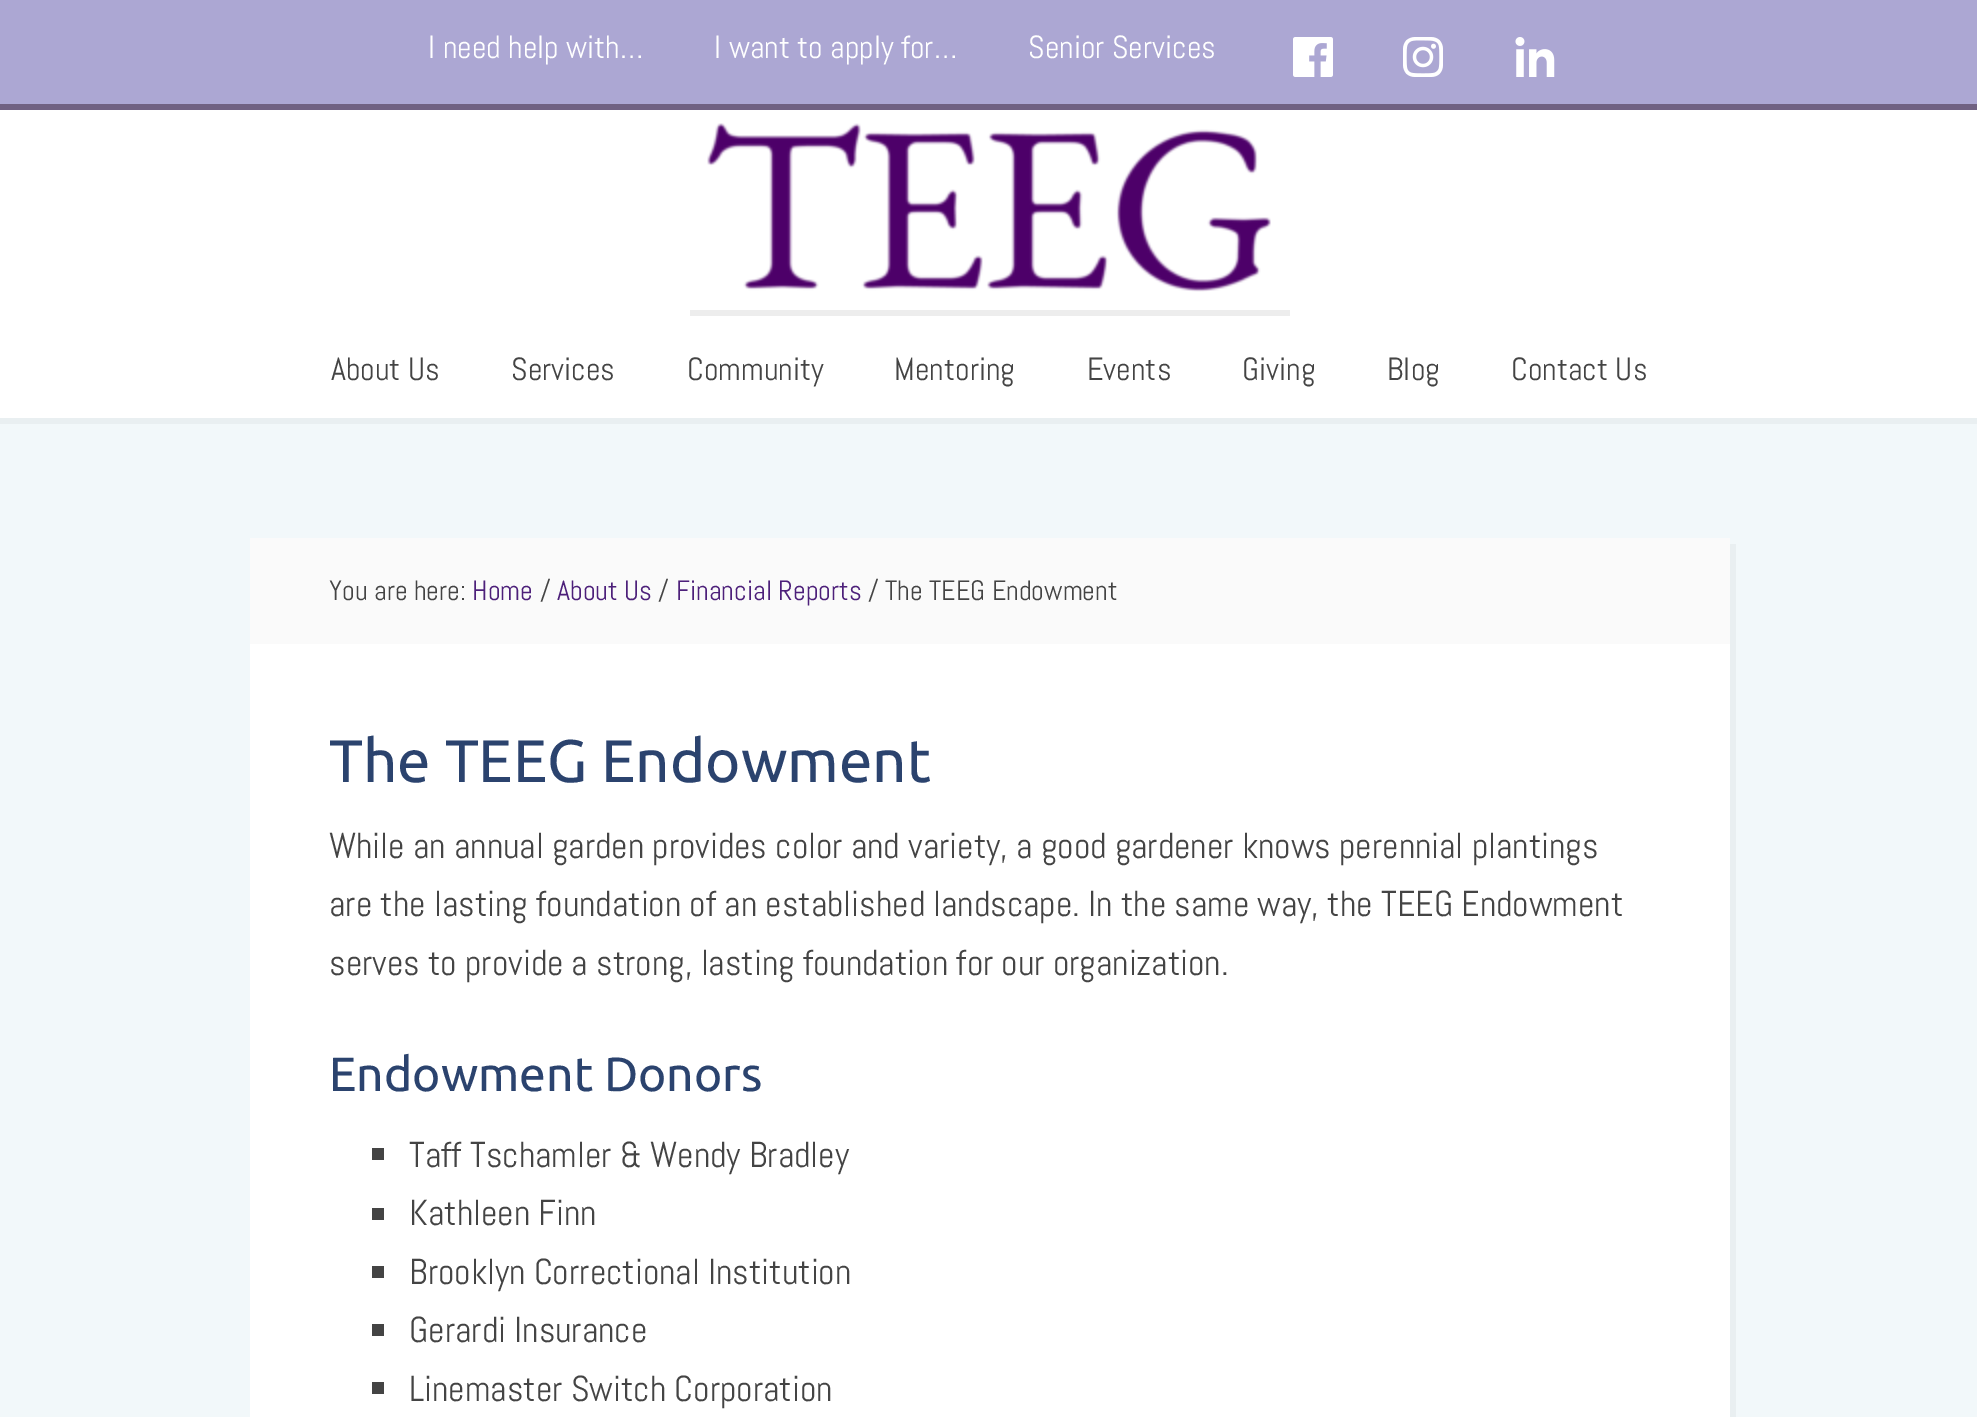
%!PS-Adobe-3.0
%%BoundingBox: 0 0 1977 1417
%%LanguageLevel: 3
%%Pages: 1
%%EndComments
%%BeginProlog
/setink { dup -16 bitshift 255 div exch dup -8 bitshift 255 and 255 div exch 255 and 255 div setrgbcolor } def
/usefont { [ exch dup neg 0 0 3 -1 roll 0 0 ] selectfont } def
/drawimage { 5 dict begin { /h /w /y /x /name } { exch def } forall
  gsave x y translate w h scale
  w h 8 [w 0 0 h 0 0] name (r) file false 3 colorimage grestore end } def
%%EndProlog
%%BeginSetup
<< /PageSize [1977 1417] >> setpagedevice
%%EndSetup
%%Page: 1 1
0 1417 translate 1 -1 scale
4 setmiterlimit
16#F2F8FA setink
0 0 1977 1417 rectfill
16#ACA7D3 setink
0 0 1977 104 rectfill
/Abel-Regular 32 usefont
16#FFFFFF setink
[
    [(I need help with…) 428 58]
    [(I want to apply for…) 714 58]
    [(Senior Services) 1028 58]
] { aload pop moveto show } forall
(img1.raw) 1293 37 40 40 drawimage
(img2.raw) 1403 37 40 40 drawimage
(img3.raw) 1515 37 40 40 drawimage
[
    [0 418 1977 6 16#E9EFF1]
    [0 110 1977 308 16#FFFFFF]
    [0 104 1977 6 16#706182]
    [690 310 600 6 16#EDEDED]
] { aload pop setink rectfill } forall
(img4.raw) 707 123 564 169 drawimage
16#444444 setink
[
    [(About Us) 331 380]
    [(Services) 511 380]
    [(Community) 687 380]
    [(Mentoring) 894 380]
    [(Events) 1087 380]
    [(Giving) 1242 380]
    [(Blog) 1387 380]
    [(Contact Us) 1511 380]
] { aload pop moveto show } forall
16#E9EFF1 setink
256 644 moveto 256 650 lineto 1736 650 lineto 1736 544 lineto 1730 544 lineto 1730 644 lineto closepath fill
16#FAFAFA setink
250 538 1480 106 rectfill
/Abel-Regular 28 usefont
16#444444 setink
329 600 moveto (You are here:) show
16#4D207A setink
472 600 moveto (Home) show
16#444444 setink
540 600 moveto (/) show
16#4D207A setink
557 600 moveto (About Us) show
16#444444 setink
658 600 moveto (/) show
16#4D207A setink
676 600 moveto (Financial Reports) show
16#444444 setink
868 600 moveto (/ The TEEG Endowment) show
16#E9EFF1 setink
256 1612 moveto 256 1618 lineto 1736 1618 lineto 1736 650 lineto 1730 650 lineto 1730 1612 lineto closepath fill
16#FFFFFF setink
250 644 1480 773 rectfill
/Ubuntu-Regular 60 usefont
16#2B436E setink
329 782 moveto (The TEEG Endowment) show
/Abel-Regular 36 usefont
16#444444 setink
[
    [(While an annual garden provides color and variety, a good gardener knows perennial plantings) 329 858]
    [(are the lasting foundation of an established landscape. In the same way, the TEEG Endowment) 329 916]
    [(serves to provide a strong, lasting foundation for our organization.) 329 975]
] { aload pop moveto show } forall
/Ubuntu-Regular 48 usefont
16#2B436E setink
329 1091 moveto (Endowment Donors) show
16#444444 setink
372 1148 12 12 rectfill
/Abel-Regular 36 usefont
409 1167 moveto (Taff Tschamler & Wendy Bradley) show
372 1208 12 12 rectfill
409 1225 moveto (Kathleen Finn) show
372 1266 12 12 rectfill
409 1284 moveto (Brooklyn Correctional Institution) show
372 1324 12 12 rectfill
409 1342 moveto (Gerardi Insurance) show
372 1382 12 12 rectfill
409 1401 moveto (Linemaster Switch Corporation) show
showpage
%%EOF
